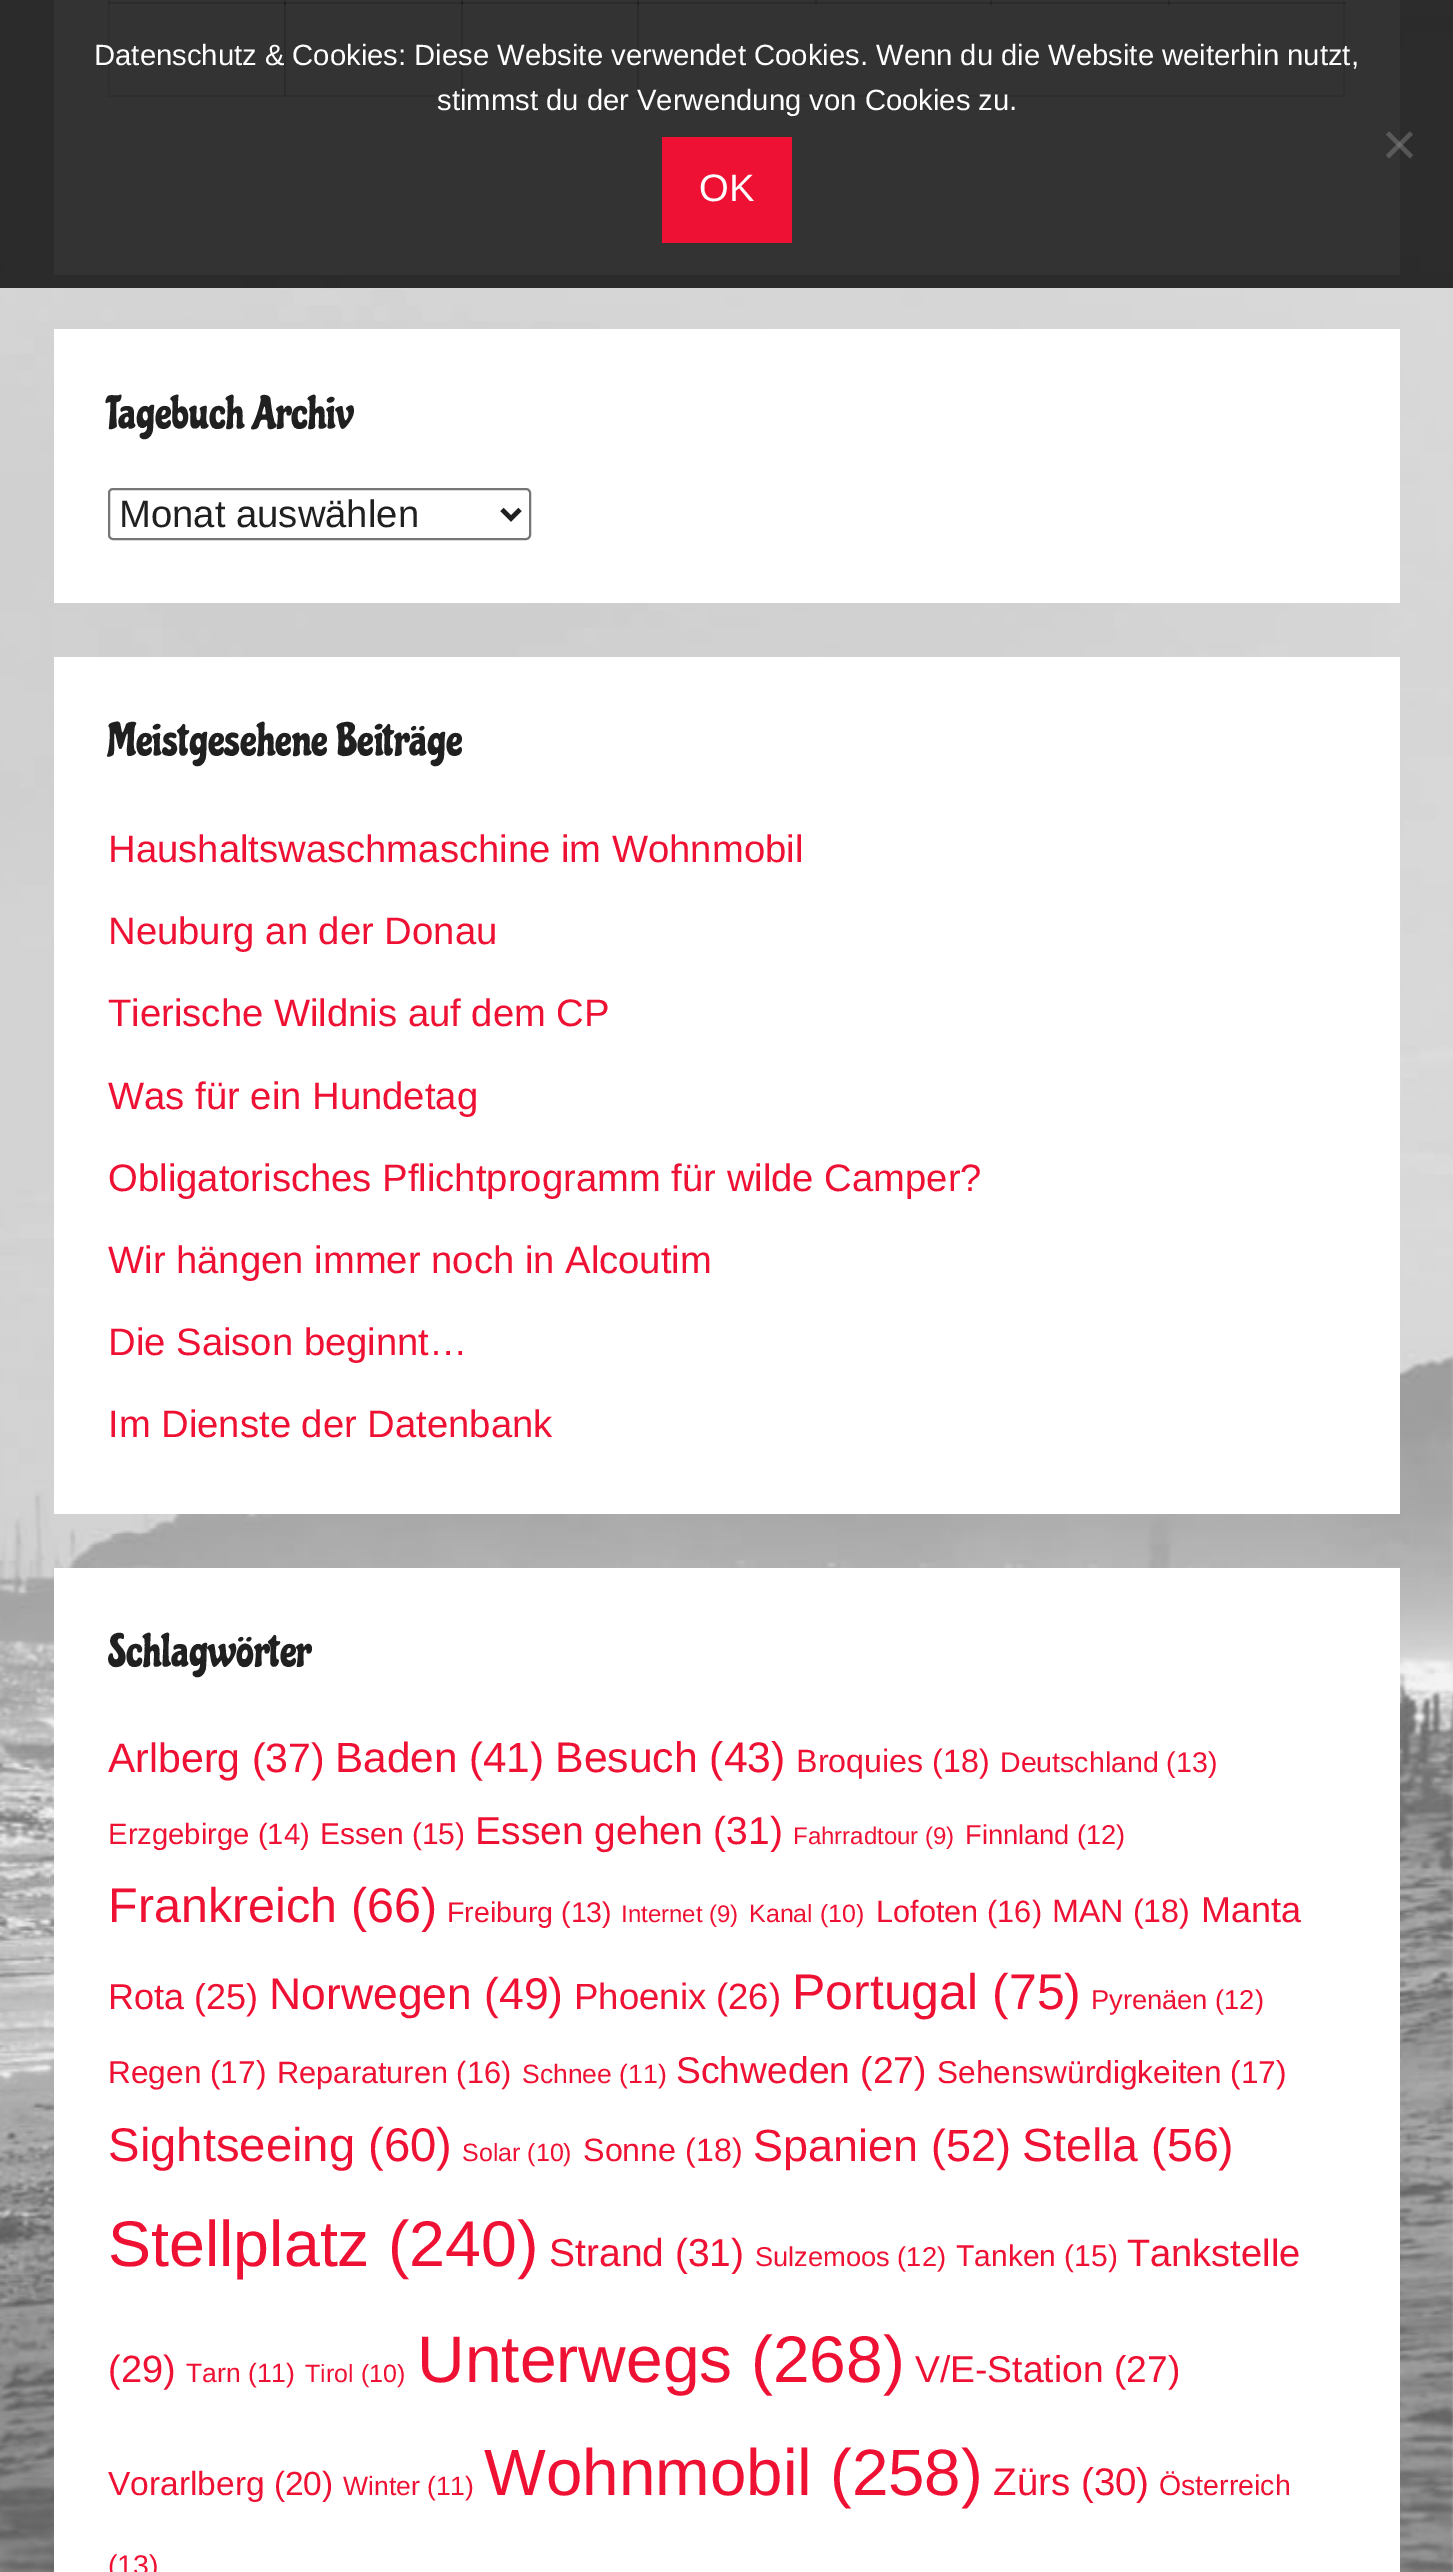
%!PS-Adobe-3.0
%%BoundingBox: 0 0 1453 2572
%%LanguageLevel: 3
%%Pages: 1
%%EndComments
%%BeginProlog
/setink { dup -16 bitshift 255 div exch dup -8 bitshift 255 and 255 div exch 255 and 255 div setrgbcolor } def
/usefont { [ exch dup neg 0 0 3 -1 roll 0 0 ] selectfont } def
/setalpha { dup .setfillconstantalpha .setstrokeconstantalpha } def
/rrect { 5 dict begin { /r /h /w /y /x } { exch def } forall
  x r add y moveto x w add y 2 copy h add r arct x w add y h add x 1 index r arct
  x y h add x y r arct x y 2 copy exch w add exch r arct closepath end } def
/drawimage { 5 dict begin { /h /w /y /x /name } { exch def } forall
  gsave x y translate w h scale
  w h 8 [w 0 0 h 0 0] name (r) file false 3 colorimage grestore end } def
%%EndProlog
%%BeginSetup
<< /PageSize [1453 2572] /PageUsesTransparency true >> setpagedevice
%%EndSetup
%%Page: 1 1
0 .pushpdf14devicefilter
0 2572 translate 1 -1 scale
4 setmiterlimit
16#FFFFFF setink
0 0 1453 2572 rectfill
(img1.raw) 0 0 1453 2572 drawimage
[
    [54 0 1346 275 16#FFFFFF]
    [637 2 709 2 16#ECECEC]
] { aload pop setink rectfill } forall
0.07 setalpha
[
    [1343 2 2 95 16#000000]
    [1343 0 2 5 16#000000]
    [1168 2 178 2 16#000000]
    [1168 0 2 5 16#000000]
    [1168 0 2 5 16#000000]
    [990 2 180 2 16#000000]
    [990 0 2 5 16#000000]
    [990 0 2 5 16#000000]
    [815 2 177 2 16#000000]
    [815 0 2 5 16#000000]
    [815 0 2 5 16#000000]
    [637 95 709 2 16#000000]
    [637 2 2 95 16#000000]
    [461 2 178 2 16#000000]
    [637 2 2 95 16#000000]
    [637 2 180 2 16#000000]
    [637 0 2 5 16#000000]
    [637 0 2 5 16#000000]
    [461 95 178 2 16#000000]
    [461 2 2 95 16#000000]
    [284 2 180 2 16#000000]
    [461 2 2 95 16#000000]
    [461 2 178 2 16#000000]
    [461 0 2 5 16#000000]
    [461 0 2 5 16#000000]
    [284 95 180 2 16#000000]
    [284 2 2 95 16#000000]
    [108 2 178 2 16#000000]
    [284 2 2 95 16#000000]
    [284 2 180 2 16#000000]
    [284 0 2 5 16#000000]
    [284 0 2 5 16#000000]
    [108 95 178 2 16#000000]
    [108 2 2 95 16#000000]
    [108 2 178 2 16#000000]
    [108 0 2 5 16#000000]
] { aload pop setink rectfill } forall
0.8 setalpha
[
    [0 0 1453 288 16#000000]
] { aload pop setink rectfill } forall
/LiberationSans-Regular 29.25 usefont
1 setalpha
16#FFFFFF setink
94 65 moveto (Datenschutz & Cookies: Diese Website verwendet Cookies. Wenn du die Website weiterhin nutzt,) show
437 110 moveto (stimmst du der Verwendung von Cookies zu.) show
0.5 setalpha
16#808080 setink
1410 131.5 moveto 1413 134.5 lineto 1389 158.5 lineto 1386 155 lineto closepath fill
1386 134.5 moveto 1389 131.5 lineto 1413 155 lineto 1410 158.5 lineto closepath fill
1 setalpha
16#EE1133 setink
662 137 130 106 rectfill
/LiberationSans-Regular 38.25 usefont
16#FFFFFF setink
699 201 moveto (OK) show
54 329 1346 274 rectfill
/Chicle-Regular 45 usefont
16#202020 setink
108 428 moveto (Tagebuch Archiv) show
16#767676 setink
2 setlinewidth
109 489 421 50 4 rrect stroke
16#202020 setink
4.5 setlinewidth
502 509.5 moveto 511 518.5 lineto 520 509.5 lineto stroke
/LiberationSans-Regular 38.25 usefont
119 527 moveto (Monat auswählen) show
16#FFFFFF setink
54 657 1346 857 rectfill
/Chicle-Regular 45 usefont
16#202020 setink
108 755 moveto (Meistgesehene Beiträge) show
/LiberationSans-Regular 38.25 usefont
16#EE1133 setink
[
    [(Haushaltswaschmaschine im Wohnmobil) 108 862]
    [(Neuburg an der Donau) 108 944]
    [(Tierische Wildnis auf dem CP) 108 1026]
    [(Was für ein Hundetag) 108 1109]
    [(Obligatorisches Pflichtprogramm für wilde Camper?) 108 1191]
    [(Wir hängen immer noch in Alcoutim) 108 1273]
    [(Die Saison beginnt…) 108 1355]
    [(Im Dienste der Datenbank) 108 1437]
] { aload pop moveto show } forall
16#FFFFFF setink
54 1568 1346 1004 rectfill
/Chicle-Regular 45 usefont
16#202020 setink
108 1666 moveto (Schlagwörter) show
/LiberationSans-Regular 41 usefont
16#EE1133 setink
108 1772 moveto (Arlberg \(37\)) show
/LiberationSans-Regular 42.25 usefont
335 1772 moveto (Baden \(41\)) show
/LiberationSans-Regular 42.75 usefont
555 1772 moveto (Besuch \(43\)) show
/LiberationSans-Regular 32.25 usefont
796 1772 moveto (Broquies \(18\)) show
/LiberationSans-Regular 28.5 usefont
1000 1772 moveto (Deutschland \(13\)) show
/LiberationSans-Regular 29.25 usefont
108 1844 moveto (Erzgebirge \(14\)) show
/LiberationSans-Regular 30 usefont
320 1844 moveto (Essen \(15\)) show
/LiberationSans-Regular 39 usefont
475 1844 moveto (Essen gehen \(31\)) show
/LiberationSans-Regular 24 usefont
793 1844 moveto (Fahrradtour \(9\)) show
/LiberationSans-Regular 27.25 usefont
965 1844 moveto (Finnland \(12\)) show
/LiberationSans-Regular 48.5 usefont
108 1922 moveto (Frankreich \(66\)) show
/LiberationSans-Regular 28.5 usefont
447 1922 moveto (Freiburg \(13\)) show
/LiberationSans-Regular 24 usefont
621 1922 moveto (Internet \(9\)) show
/LiberationSans-Regular 25 usefont
749 1922 moveto (Kanal \(10\)) show
/LiberationSans-Regular 30.75 usefont
876 1922 moveto (Lofoten \(16\)) show
/LiberationSans-Regular 32.25 usefont
1052 1922 moveto (MAN \(18\)) show
/LiberationSans-Regular 36 usefont
1201 1922 moveto (Manta) show
108 2009 moveto (Rota \(25\)) show
/LiberationSans-Regular 44.5 usefont
269 2009 moveto (Norwegen \(49\)) show
/LiberationSans-Regular 36.5 usefont
574 2009 moveto (Phoenix \(26\)) show
/LiberationSans-Regular 50 usefont
792 2009 moveto (Portugal \(75\)) show
/LiberationSans-Regular 27.25 usefont
1091 2009 moveto (Pyrenäen \(12\)) show
/LiberationSans-Regular 31.6 usefont
108 2083 moveto (Regen \(17\)) show
/LiberationSans-Regular 30.75 usefont
277 2083 moveto (Reparaturen \(16\)) show
/LiberationSans-Regular 26.5 usefont
522 2083 moveto (Schnee \(11\)) show
/LiberationSans-Regular 37.25 usefont
676 2083 moveto (Schweden \(27\)) show
/LiberationSans-Regular 31.6 usefont
937 2083 moveto (Sehenswürdigkeiten \(17\)) show
/LiberationSans-Regular 47.25 usefont
108 2161 moveto (Sightseeing \(60\)) show
/LiberationSans-Regular 25 usefont
462 2161 moveto (Solar \(10\)) show
/LiberationSans-Regular 32.25 usefont
583 2161 moveto (Sonne \(18\)) show
/LiberationSans-Regular 45 usefont
753 2161 moveto (Spanien \(52\)) show
/LiberationSans-Regular 46.5 usefont
1022 2161 moveto (Stella \(56\)) show
/LiberationSans-Regular 64.5 usefont
108 2266 moveto (Stellplatz \(240\)) show
/LiberationSans-Regular 39 usefont
549 2266 moveto (Strand \(31\)) show
/LiberationSans-Regular 27.25 usefont
755 2266 moveto (Sulzemoos \(12\)) show
/LiberationSans-Regular 30 usefont
956 2266 moveto (Tanken \(15\)) show
/LiberationSans-Regular 38 usefont
1127 2266 moveto (Tankstelle) show
108 2382 moveto (\(29\)) show
/LiberationSans-Regular 26.5 usefont
186 2382 moveto (Tarn \(11\)) show
/LiberationSans-Regular 25 usefont
305 2382 moveto (Tirol \(10\)) show
/LiberationSans-Regular 66 usefont
417 2382 moveto (Unterwegs \(268\)) show
/LiberationSans-Regular 37.25 usefont
915 2382 moveto (V/E-Station \(27\)) show
/LiberationSans-Regular 33.5 usefont
108 2495 moveto (Vorarlberg \(20\)) show
/LiberationSans-Regular 26.5 usefont
343 2495 moveto (Winter \(11\)) show
/LiberationSans-Regular 65.5 usefont
484 2495 moveto (Wohnmobil \(258\)) show
/LiberationSans-Regular 38.5 usefont
993 2495 moveto (Zürs \(30\)) show
/LiberationSans-Regular 28.5 usefont
1159 2495 moveto (Österreich) show
108 2575 moveto (\(13\)) show
.poppdf14devicefilter showpage
%%EOF
